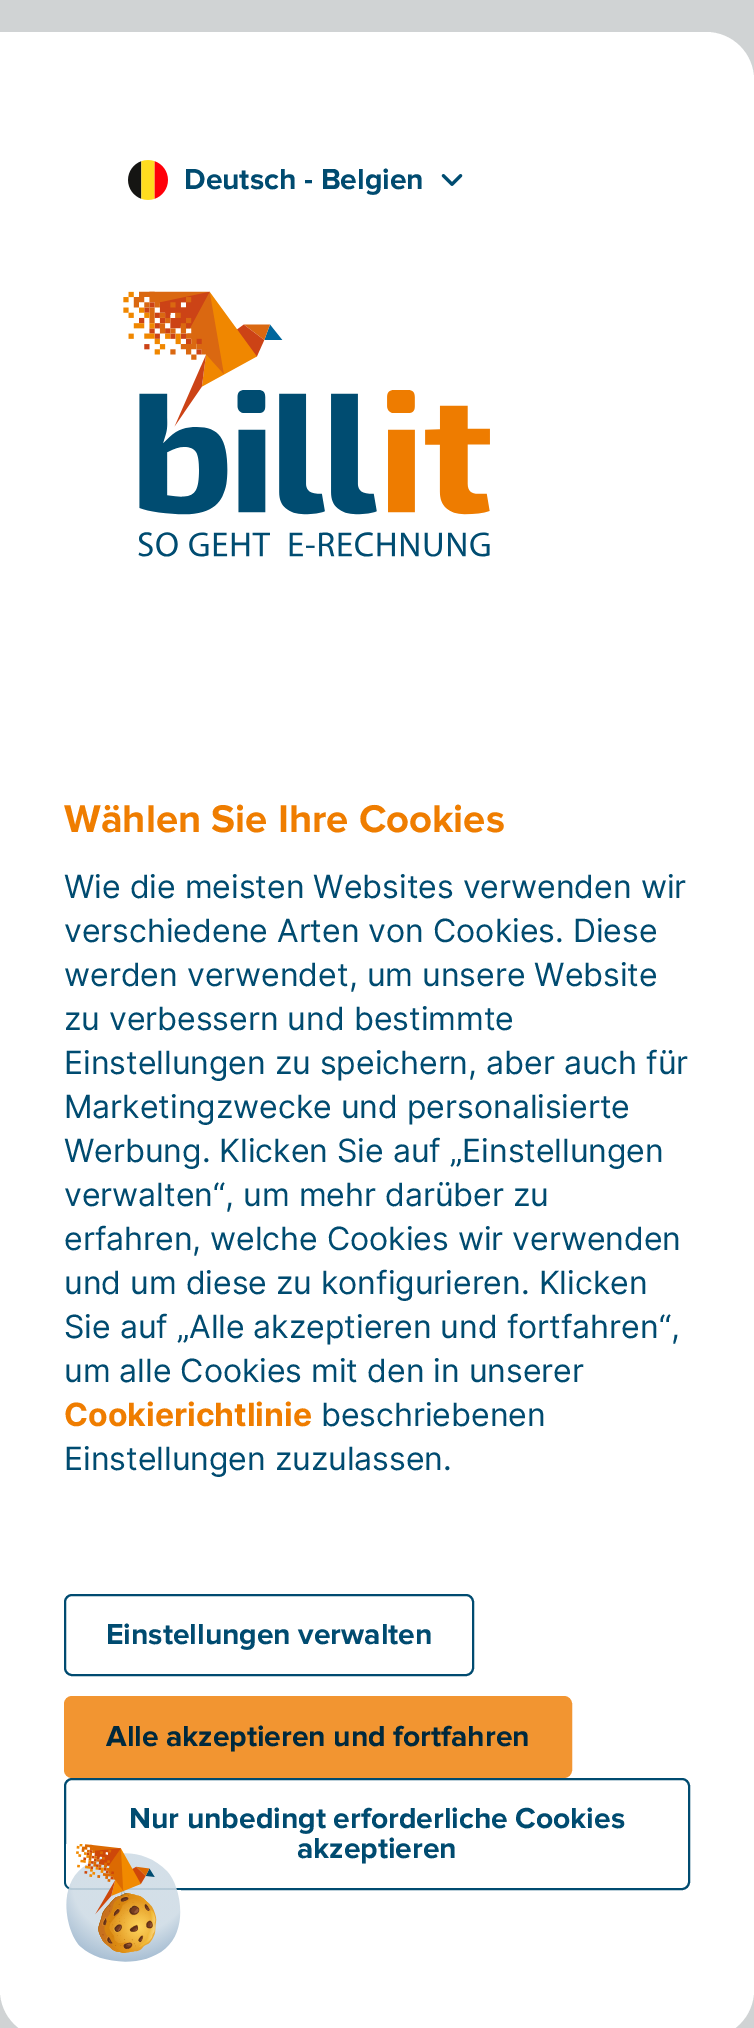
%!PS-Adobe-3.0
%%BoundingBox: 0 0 754 2028
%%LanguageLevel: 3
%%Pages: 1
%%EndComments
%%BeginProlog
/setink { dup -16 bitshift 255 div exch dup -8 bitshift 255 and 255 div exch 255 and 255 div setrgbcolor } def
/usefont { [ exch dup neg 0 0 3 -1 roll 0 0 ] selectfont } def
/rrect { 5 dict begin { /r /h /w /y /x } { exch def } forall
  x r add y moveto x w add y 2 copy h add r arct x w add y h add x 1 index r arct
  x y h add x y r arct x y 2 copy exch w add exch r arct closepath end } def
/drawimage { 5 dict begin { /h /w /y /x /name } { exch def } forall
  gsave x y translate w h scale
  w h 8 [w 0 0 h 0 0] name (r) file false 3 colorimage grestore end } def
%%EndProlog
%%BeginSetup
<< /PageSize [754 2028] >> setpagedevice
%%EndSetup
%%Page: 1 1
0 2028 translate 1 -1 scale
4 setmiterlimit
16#D0D3D4 setink
0 0 754 2028 rectfill
16#FFFFFF setink
0 32 moveto 706 32 lineto 732.5 32 754 53.5 754 80 curveto 754 1990 lineto 754 2016.5 732.5 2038 706 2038 curveto 48 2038 lineto 21.5 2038 0 2016.5 0 1990 curveto closepath fill
(img1.raw) 128 160 40 40 drawimage
/ProximaNova-Bold 30 usefont
16#004B70 setink
184 189 moveto (Deutsch - Belgien) show
(img2.raw) 441 174 22 12 drawimage
(img3.raw) 123 291 367 266 drawimage
/ProximaNova-Bold 40 usefont
16#EF7D00 setink
64 832 moveto (Wählen Sie Ihre Cookies) show
/Inter-Regular 32 usefont
16#004B70 setink
[
    [(Wie die meisten Websites verwenden wir) 64 898]
    [(verschiedene Arten von Cookies. Diese) 64 942]
    [(werden verwendet, um unsere Website) 64 986]
    [(zu verbessern und bestimmte) 64 1030]
    [(Einstellungen zu speichern, aber auch für) 64 1074]
    [(Marketingzwecke und personalisierte) 64 1118]
    [(Werbung. Klicken Sie auf „Einstellungen) 64 1162]
    [(verwalten“, um mehr darüber zu) 64 1206]
    [(erfahren, welche Cookies wir verwenden) 64 1250]
    [(und um diese zu konfigurieren. Klicken) 64 1294]
    [(Sie auf „Alle akzeptieren und fortfahren“,) 64 1338]
    [(um alle Cookies mit den in unserer) 64 1382]
] { aload pop moveto show } forall
/Inter-Bold 32 usefont
16#EF7D00 setink
64 1426 moveto (Cookierichtlinie) show
/Inter-Regular 32 usefont
16#004B70 setink
321 1426 moveto (beschriebenen) show
64 1470 moveto (Einstellungen zuzulassen.) show
2 setlinewidth
65 1595 408 80 7 rrect stroke
/ProximaNova-Bold 30 usefont
106 1644 moveto (Einstellungen verwalten) show
16#F29531 setink
65 1697 506 80 7 rrect gsave fill grestore
stroke
16#00293D setink
106 1746 moveto (Alle akzeptieren und fortfahren) show
16#004B70 setink
65 1779 624 110 7 rrect stroke
129 1828 moveto (Nur unbedingt erforderliche Cookies) show
297 1858 moveto (akzeptieren) show
(img4.raw) 66 1844 115 118 drawimage
showpage
%%EOF
